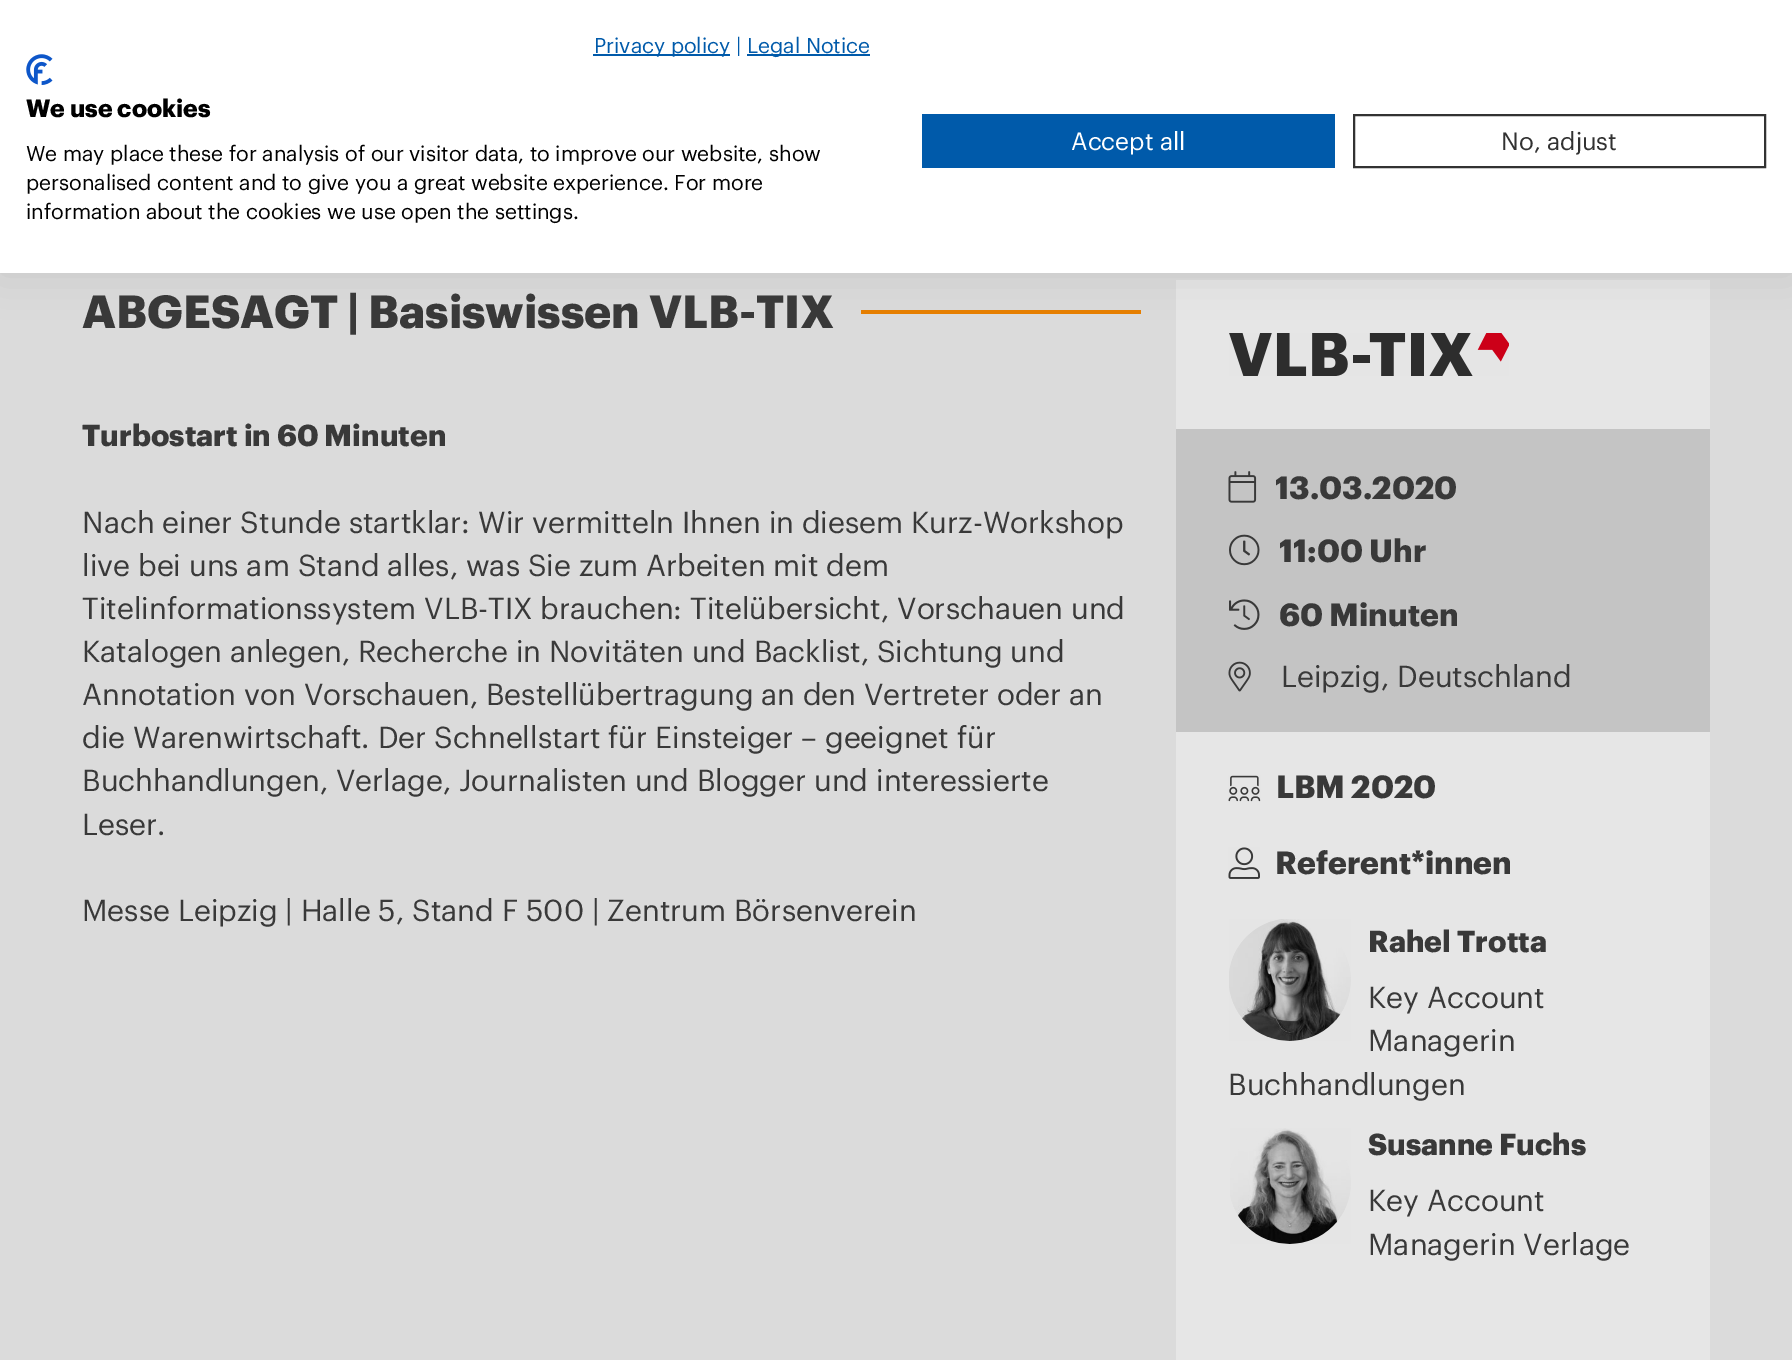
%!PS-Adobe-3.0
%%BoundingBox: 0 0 1792 1360
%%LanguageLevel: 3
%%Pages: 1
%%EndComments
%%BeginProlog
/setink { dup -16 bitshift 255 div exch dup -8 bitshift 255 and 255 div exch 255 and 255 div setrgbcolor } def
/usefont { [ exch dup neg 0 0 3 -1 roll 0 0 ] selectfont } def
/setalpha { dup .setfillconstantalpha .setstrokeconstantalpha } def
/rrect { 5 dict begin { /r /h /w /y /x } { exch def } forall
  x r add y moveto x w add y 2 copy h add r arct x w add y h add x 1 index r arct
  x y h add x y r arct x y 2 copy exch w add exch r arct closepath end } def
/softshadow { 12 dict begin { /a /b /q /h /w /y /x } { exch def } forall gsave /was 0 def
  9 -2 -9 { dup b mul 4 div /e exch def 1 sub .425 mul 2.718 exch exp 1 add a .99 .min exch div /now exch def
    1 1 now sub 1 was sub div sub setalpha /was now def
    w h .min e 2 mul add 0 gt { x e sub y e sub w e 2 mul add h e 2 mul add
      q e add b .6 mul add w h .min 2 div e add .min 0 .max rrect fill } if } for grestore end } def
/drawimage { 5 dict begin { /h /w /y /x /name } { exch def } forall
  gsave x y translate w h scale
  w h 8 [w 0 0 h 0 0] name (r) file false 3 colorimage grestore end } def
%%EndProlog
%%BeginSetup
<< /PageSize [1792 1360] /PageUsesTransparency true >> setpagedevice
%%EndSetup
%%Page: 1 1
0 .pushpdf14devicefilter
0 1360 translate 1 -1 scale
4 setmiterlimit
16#DBDBDB setink
0 0 1792 1360 rectfill
16#E67E00 setink
861 310 280 4 rectfill
16#E6E6E6 setink
1176 280 534 1080 rectfill
(img2.raw) 1229 333 280 43 drawimage
16#000000 setink
0 0 1792 273 0 21 0.1 softshadow
16#FFFFFF setink
0 0 1792 273 rectfill
16#005AAA setink
593 54 137 2 rectfill
/Graphik-Regular 21 usefont
594 53 moveto (Privacy policy |) show
747 54 123 2 rectfill
747 53 moveto (Legal Notice) show
(img1.raw) 26 54 27 31 drawimage
/Graphik-Bold 24.5 usefont
16#000000 setink
26 117 moveto (We use cookies) show
/Graphik-Regular 21 usefont
[
    [(We may place these for analysis of our visitor data, to improve our website, show) 26 161]
    [(personalised content and to give you a great website experience. For more) 26 190]
    [(information about the cookies we use open the settings.) 26 219]
] { aload pop moveto show } forall
16#005AAA setink
922 114 413 54 rectfill
/Graphik-Regular 24.5 usefont
16#FFFFFF setink
1071 150 moveto (Accept all) show
16#323232 setink
2 setlinewidth
1354 115 411 52 rectstroke
1501 150 moveto (No, adjust) show
/Graphik-Bold 45.5 usefont
16#393939 setink
82 328 moveto (ABGESAGT | Basiswissen VLB-TIX) show
/Graphik-Bold 29.75 usefont
82 446 moveto (Turbostart in 60 Minuten) show
/Graphik-Regular 29.75 usefont
[
    [(Nach einer Stunde startklar: Wir vermitteln Ihnen in diesem Kurz-Workshop) 82 533]
    [(live bei uns am Stand alles, was Sie zum Arbeiten mit dem) 82 576]
    [(Titelinformationssystem VLB-TIX brauchen: Titelübersicht, Vorschauen und) 82 619]
    [(Katalogen anlegen, Recherche in Novitäten und Backlist, Sichtung und) 82 662]
    [(Annotation von Vorschauen, Bestellübertragung an den Vertreter oder an) 82 705]
    [(die Warenwirtschaft. Der Schnellstart für Einsteiger – geeignet für) 82 748]
    [(Buchhandlungen, Verlage, Journalisten und Blogger und interessierte) 82 791]
    [(Leser.) 82 835]
    [(Messe Leipzig | Halle 5, Stand F 500 | Zentrum Börsenverein) 82 921]
] { aload pop moveto show } forall
16#C4C4C4 setink
1176 429 534 303 rectfill
(img3.raw) 1228 471 29 32 drawimage
/Graphik-Bold 31.5 usefont
16#393939 setink
1275 499 moveto (13.03.2020) show
(img4.raw) 1229 534 31 32 drawimage
1279 562 moveto (11:00 Uhr) show
(img5.raw) 1229 599 31 31 drawimage
1279 626 moveto (60 Minuten) show
(img6.raw) 1228 661 23 31 drawimage
/Graphik-Regular 29.75 usefont
1281 687 moveto (Leipzig, Deutschland) show
(img7.raw) 1228 775 33 27 drawimage
/Graphik-Bold 31.5 usefont
1276 798 moveto (LBM 2020) show
(img8.raw) 1228 847 32 32 drawimage
1275 874 moveto (Referent*innen) show
(img9.raw) 1229 919 122 122 drawimage
/Graphik-Bold 29.75 usefont
1368 952 moveto (Rahel Trotta) show
/Graphik-Regular 29.75 usefont
[
    [(Key Account) 1368 1008]
    [(Managerin) 1368 1051]
    [(Buchhandlungen) 1228 1095]
] { aload pop moveto show } forall
(img10.raw) 1230 1128 121 116 drawimage
/Graphik-Bold 29.75 usefont
1368 1155 moveto (Susanne Fuchs) show
/Graphik-Regular 29.75 usefont
1368 1211 moveto (Key Account) show
1368 1255 moveto (Managerin Verlage) show
.poppdf14devicefilter showpage
%%EOF
